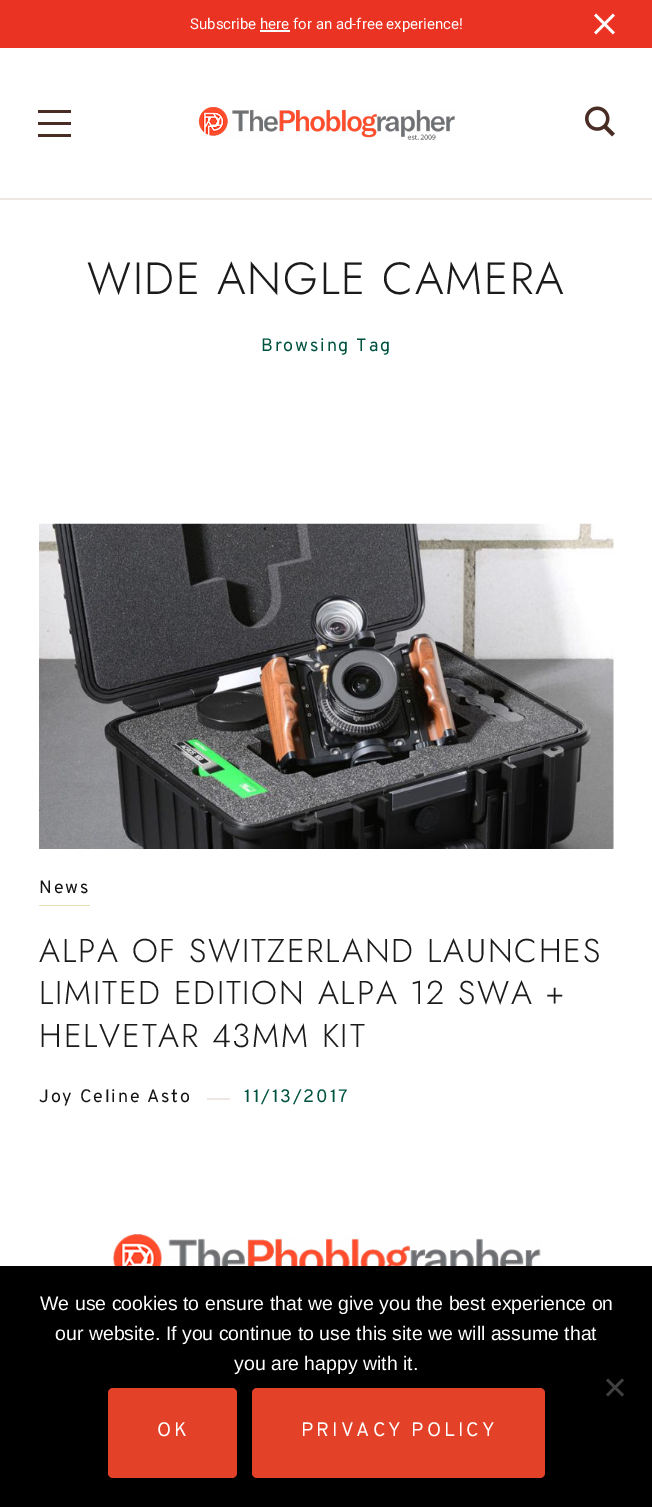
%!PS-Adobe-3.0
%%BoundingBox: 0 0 652 1507
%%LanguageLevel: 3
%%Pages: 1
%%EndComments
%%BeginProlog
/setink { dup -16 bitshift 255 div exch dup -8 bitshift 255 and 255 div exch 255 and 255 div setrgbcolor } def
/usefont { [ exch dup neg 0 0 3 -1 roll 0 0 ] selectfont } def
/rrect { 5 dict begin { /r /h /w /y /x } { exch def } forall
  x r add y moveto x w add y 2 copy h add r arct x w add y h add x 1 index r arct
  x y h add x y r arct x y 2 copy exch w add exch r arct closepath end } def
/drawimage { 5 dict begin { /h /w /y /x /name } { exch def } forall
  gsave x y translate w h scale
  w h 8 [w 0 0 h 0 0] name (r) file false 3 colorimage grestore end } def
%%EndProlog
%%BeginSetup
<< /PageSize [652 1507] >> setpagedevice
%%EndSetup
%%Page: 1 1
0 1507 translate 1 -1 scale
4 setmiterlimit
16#FFFFFF setink
0 0 652 1507 rectfill
16#EB3323 setink
0 0 652 48 rectfill
/Roboto-Regular 15 usefont
16#FFFFFF setink
190 29 moveto (Subscribe here for an ad-free experience!) show
260 30 30 2 rectfill
(img1.raw) 594 13 21 22 drawimage
[
    [0 198 652 2 16#EEE6E2]
    [38 110 33 3 16#492C23]
    [38 134 33 3 16#492C23]
    [38 122 33 3 16#492C23]
] { aload pop setink rectfill } forall
(img2.raw) 198 107 257 33 drawimage
(img3.raw) 585 106 30 31 drawimage
/Jost-Light 45 usefont
16#1B1B1B setink
87 294 moveto 1.8 0 (WIDE ANGLE CAMERA) ashow
/Overpass-Regular 18 usefont
16#005240 setink
261 351 moveto 1.8 0 (Browsing Tag) ashow
(img4.raw) 39 523 575 326 drawimage
16#E5DDB3 setink
39 905 51 1 rectfill
16#121416 setink
39 893 moveto 1.8 0 (News) ashow
/Jost-Light 33 usefont
16#1B1B1B setink
39 962 moveto 1.8 0 (ALPA OF SWITZERLAND LAUNCHES) ashow
39 1004 moveto 1.8 0 (LIMITED EDITION ALPA 12 SWA +) ashow
39 1047 moveto 1.8 0 (HELVETAR 43MM KIT) ashow
/Overpass-Regular 18 usefont
16#121416 setink
39 1102 moveto 1.8 0 (Joy Celine Asto) ashow
16#EEE6E2 setink
207 1098 23 2 rectfill
16#005240 setink
244 1102 moveto 1.8 0 (11/13/2017) ashow
(img5.raw) 112 1234 429 32 drawimage
16#000000 setink
0 1266 652 241 rectfill
/LiberationSans-Regular 19.5 usefont
16#FFFFFF setink
[
    [(We use cookies to ensure that we give you the best experience on) 40 1310]
    [(our website. If you continue to use this site we will assume that) 55 1340]
    [(you are happy with it.) 234 1370]
] { aload pop moveto show } forall
16#404040 setink
622 1378.5 moveto 624 1380.5 lineto 608 1396.5 lineto 606 1394.5 lineto closepath fill
606 1380.5 moveto 608 1378.5 lineto 624 1394.5 lineto 622 1396.5 lineto closepath fill
16#E34228 setink
108 1388 129 90 5 rrect fill
/Overpass-Regular 19.5 usefont
16#FFFFFF setink
157 1436 moveto 3 0 (OK) ashow
16#E34228 setink
252 1388 293 90 5 rrect fill
16#FFFFFF setink
301 1436 moveto 3 0 (PRIVACY POLICY) ashow
showpage
%%EOF
